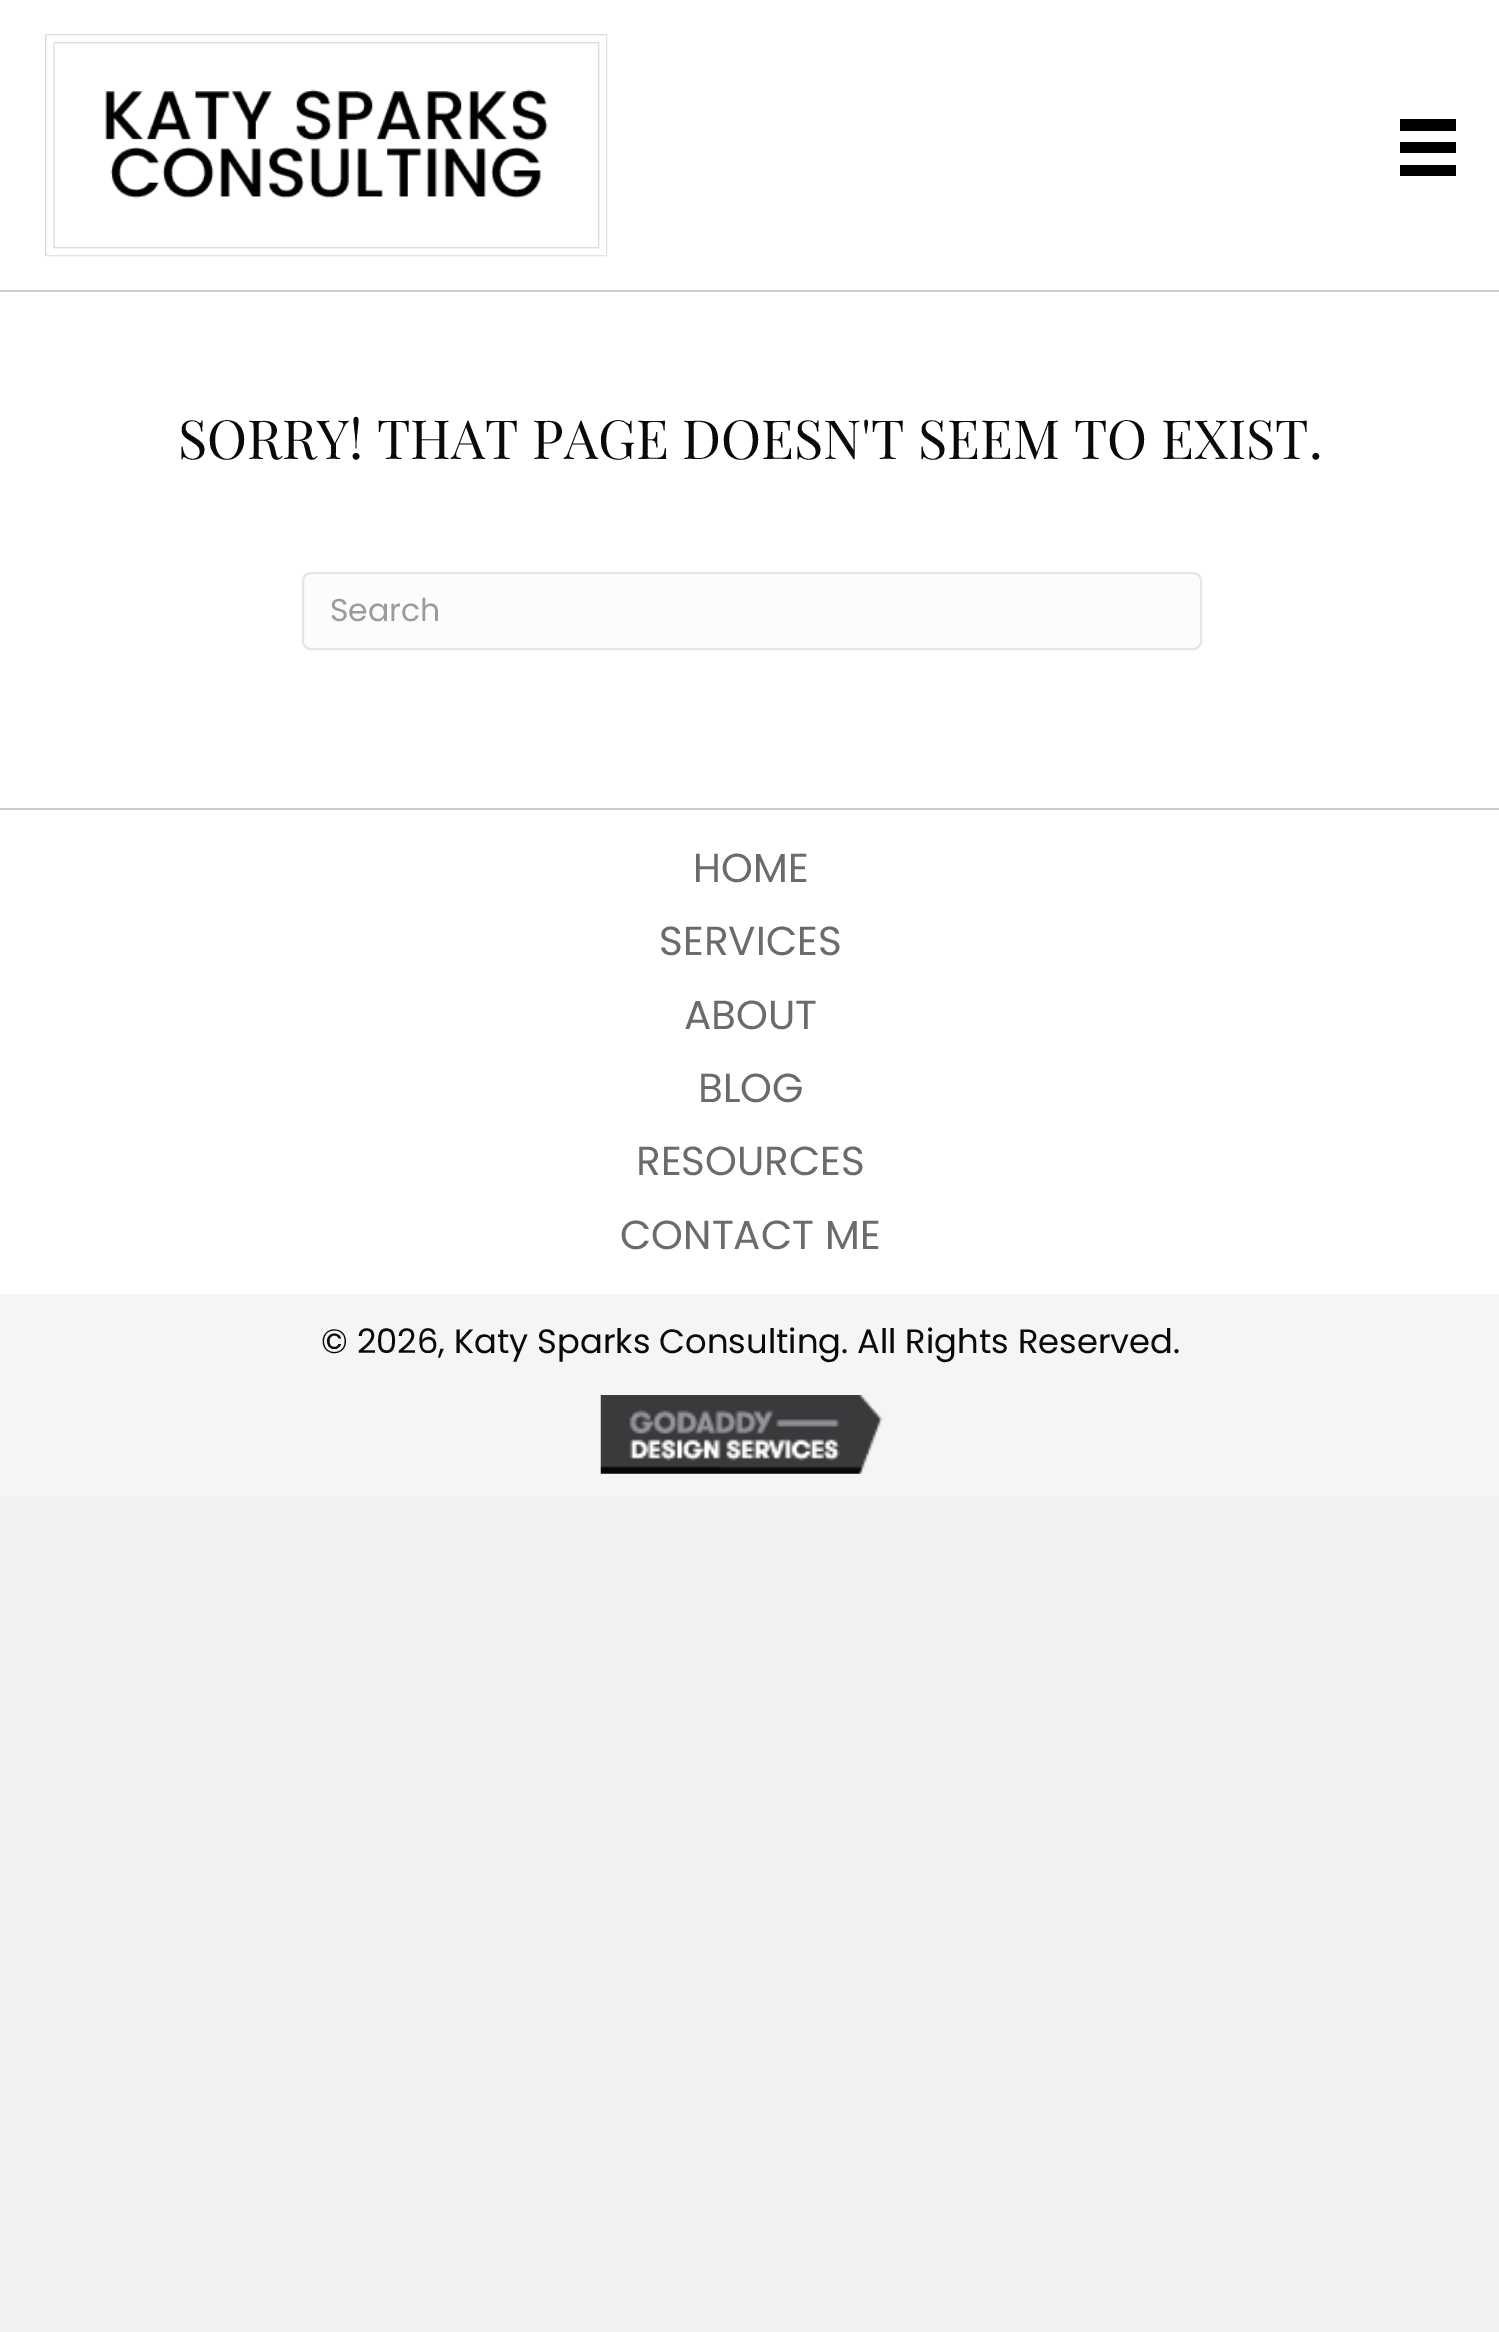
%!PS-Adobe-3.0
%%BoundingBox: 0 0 1499 2332
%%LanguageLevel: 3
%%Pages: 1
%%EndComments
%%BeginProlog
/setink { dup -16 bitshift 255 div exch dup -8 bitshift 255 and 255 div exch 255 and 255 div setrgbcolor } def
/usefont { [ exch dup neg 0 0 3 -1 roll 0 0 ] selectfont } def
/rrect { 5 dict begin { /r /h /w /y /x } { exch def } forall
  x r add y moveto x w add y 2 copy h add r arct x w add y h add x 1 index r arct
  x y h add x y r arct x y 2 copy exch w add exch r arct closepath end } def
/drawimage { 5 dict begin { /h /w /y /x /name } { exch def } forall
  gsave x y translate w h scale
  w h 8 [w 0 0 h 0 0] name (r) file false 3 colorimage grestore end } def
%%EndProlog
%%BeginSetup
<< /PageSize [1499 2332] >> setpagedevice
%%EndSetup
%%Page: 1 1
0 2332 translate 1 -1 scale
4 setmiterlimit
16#F2F2F2 setink
0 0 1499 2332 rectfill
16#FFFFFF setink
0 0 1499 808 rectfill
16#CECECE setink
0 290 1499 2 rectfill
(img1.raw) 45 34 563 223 drawimage
[
    [1400 119 56 12 16#000000]
    [1400 142 56 11 16#000000]
    [1400 165 56 11 16#000000]
] { aload pop setink rectfill } forall
/PlayfairDisplay-Regular 54 usefont
16#0A0A0A setink
178 459 moveto (SORRY! THAT PAGE DOESN'T SEEM TO EXIST.) show
16#FCFCFC setink
304 574 895 74 7 rrect fill
16#E6E6E6 setink
2 setlinewidth
303 573 898 76 8 rrect stroke
/Poppins-Regular 31.5 usefont
16#9B9B9B setink
330 621 moveto (Search) show
16#FFFFFF setink
0 810 1499 484 rectfill
16#CCCCCC setink
0 808 1499 2 rectfill
/Poppins-Regular 40.5 usefont
16#6B6B6B setink
[
    [(HOME) 693 882]
    [(SERVICES) 659 955]
    [(ABOUT) 684 1029]
    [(BLOG) 698 1102]
    [(RESOURCES) 636 1175]
    [(CONTACT ME) 620 1249]
] { aload pop moveto show } forall
16#F5F5F5 setink
0 1294 1499 202 rectfill
/Poppins-Regular 33.75 usefont
16#0A0A0A setink
321 1353 moveto (© 2026, Katy Sparks Consulting. All Rights Reserved.) show
(img2.raw) 600 1395 283 79 drawimage
showpage
%%EOF
